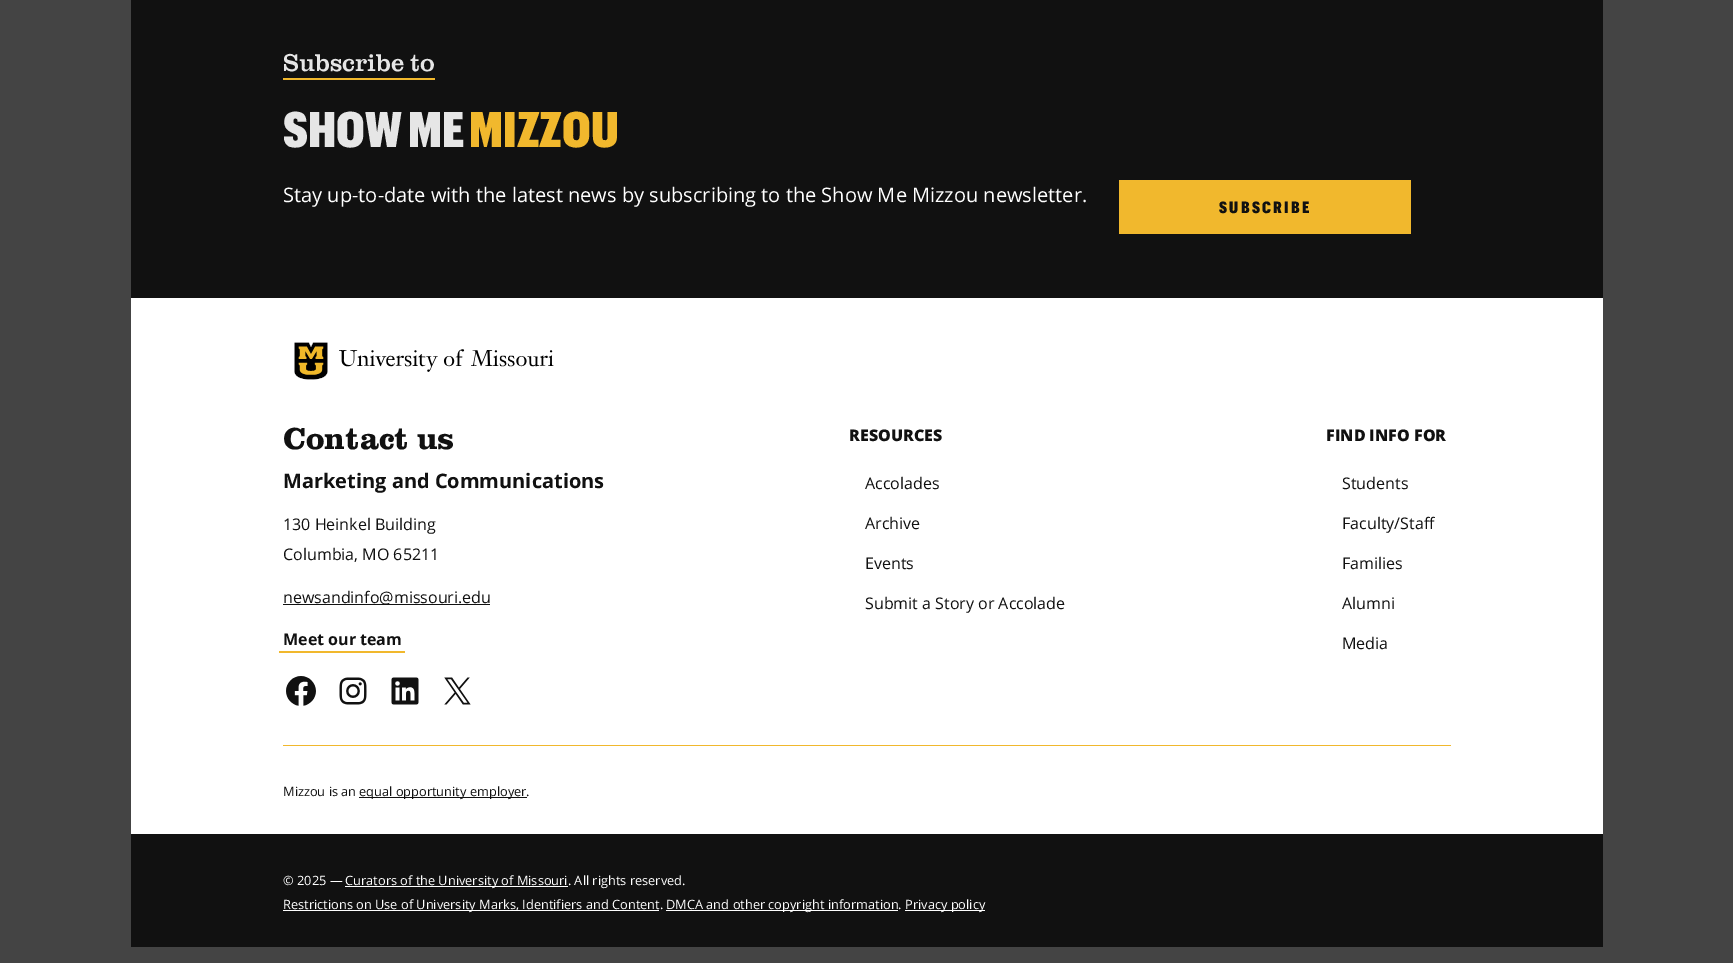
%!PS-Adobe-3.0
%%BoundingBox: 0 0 1733 963
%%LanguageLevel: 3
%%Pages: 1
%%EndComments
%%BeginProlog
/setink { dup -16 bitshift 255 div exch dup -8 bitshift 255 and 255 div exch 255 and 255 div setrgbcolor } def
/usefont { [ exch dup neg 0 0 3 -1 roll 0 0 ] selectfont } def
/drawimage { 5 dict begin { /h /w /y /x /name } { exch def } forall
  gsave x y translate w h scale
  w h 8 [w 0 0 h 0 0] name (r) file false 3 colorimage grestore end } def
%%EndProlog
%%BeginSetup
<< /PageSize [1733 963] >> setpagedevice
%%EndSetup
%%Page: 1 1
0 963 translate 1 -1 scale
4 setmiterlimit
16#444444 setink
0 0 1733 963 rectfill
[
    [131 298 1472 536 16#FFFFFF]
    [131 0 1472 298 16#111111]
    [283 78 152 2 16#F1B82D]
] { aload pop setink rectfill } forall
/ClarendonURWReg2-Regular 25 usefont
16#E6E6E6 setink
283 71 moveto (Subscribe to) show
/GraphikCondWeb-ExtraBold 49 usefont
283 147 moveto (SHOW ME) show
16#F1B82D setink
469 147 moveto (MIZZOU) show
/OpenSans-Regular 20 usefont
16#FFFFFF setink
283 202 moveto (Stay up-to-date with the latest news by subscribing to the Show Me Mizzou newsletter.) show
16#F1B82D setink
1119 180 292 54 rectfill
/GraphikCondWeb-ExtraBold 16 usefont
16#111111 setink
1219 213 moveto 2.25 0 (SUBSCRIBE) ashow
(img1.raw) 294 342 34 38 drawimage
(img2.raw) 339 349 215 23 drawimage
/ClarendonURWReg-Regular 31.25 usefont
283 449 moveto (Contact us) show
/OpenSans-Bold 20 usefont
283 488 moveto (Marketing and Communications) show
/OpenSans-Regular 16 usefont
283 530 moveto (130 Heinkel Building) show
283 560 moveto (Columbia, MO 65211) show
283 604 207 1 rectfill
283 603 moveto (newsandinfo@missouri.edu) show
/OpenSans-Bold 16 usefont
283 645 moveto (Meet our team) show
16#F1B82D setink
279 651 126 2 rectfill
(img3.raw) 286 676 30 30 drawimage
(img4.raw) 339 677 28 28 drawimage
(img5.raw) 391 677 28 28 drawimage
(img6.raw) 444 677 27 28 drawimage
/OpenSans-ExtraBold 16 usefont
16#111111 setink
849 441 moveto (RESOURCES) show
/OpenSans-Regular 16 usefont
[
    [(Accolades) 865 489]
    [(Archive) 865 529]
    [(Events) 865 569]
    [(Submit a Story or Accolade) 865 609]
] { aload pop moveto show } forall
/OpenSans-ExtraBold 16 usefont
1326 441 moveto (FIND INFO FOR) show
/OpenSans-Regular 16 usefont
[
    [(Students) 1342 489]
    [(Faculty/Staff) 1342 529]
    [(Families) 1342 569]
    [(Alumni) 1342 609]
    [(Media) 1342 649]
] { aload pop moveto show } forall
16#F1B82D setink
283 745 1168 1 rectfill
/OpenSans-Regular 12.8 usefont
16#111111 setink
283 796 moveto (Mizzou is an) show
359 797 168 1 rectfill
359 796 moveto (equal opportunity employer.) show
131 834 1472 113 rectfill
16#FFFFFF setink
283 885 moveto (© 2025 —) show
345 886 223 1 rectfill
345 885 moveto (Curators of the University of Missouri. All rights reserved.) show
283 910 376 1 rectfill
283 909 moveto (Restrictions on Use of University Marks, Identifiers and Content.) show
666 910 232 1 rectfill
666 909 moveto (DMCA and other copyright information.) show
905 910 80 1 rectfill
905 909 moveto (Privacy policy) show
showpage
%%EOF
